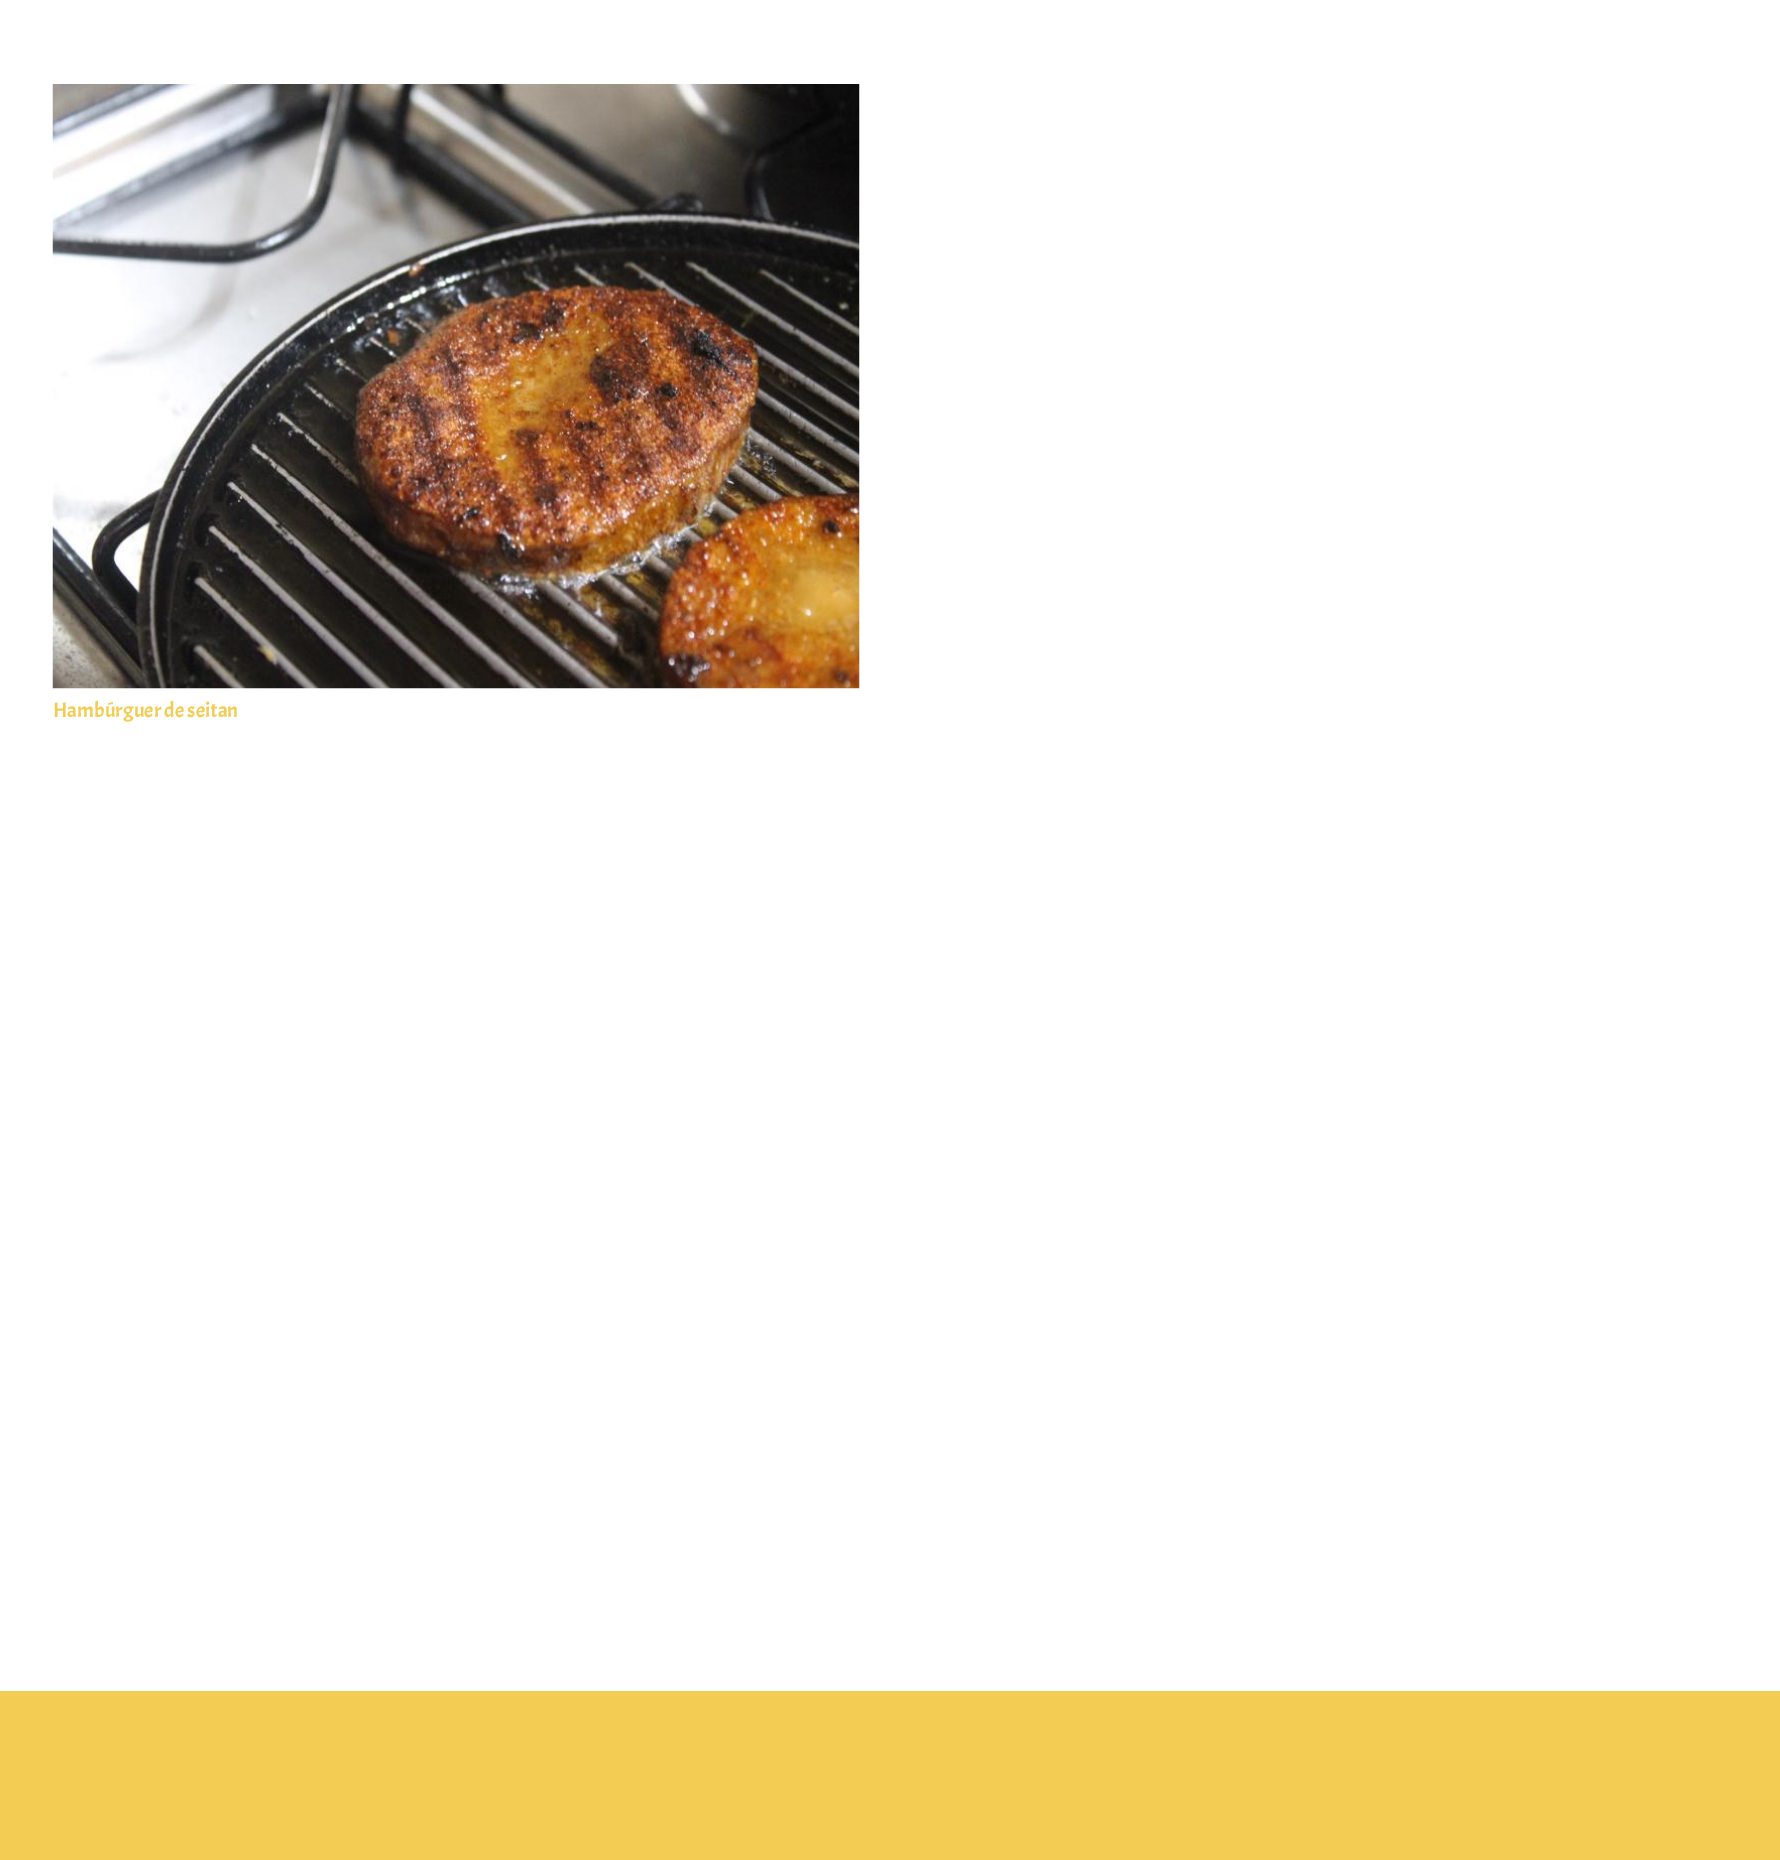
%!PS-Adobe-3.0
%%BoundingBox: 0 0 1780 1860
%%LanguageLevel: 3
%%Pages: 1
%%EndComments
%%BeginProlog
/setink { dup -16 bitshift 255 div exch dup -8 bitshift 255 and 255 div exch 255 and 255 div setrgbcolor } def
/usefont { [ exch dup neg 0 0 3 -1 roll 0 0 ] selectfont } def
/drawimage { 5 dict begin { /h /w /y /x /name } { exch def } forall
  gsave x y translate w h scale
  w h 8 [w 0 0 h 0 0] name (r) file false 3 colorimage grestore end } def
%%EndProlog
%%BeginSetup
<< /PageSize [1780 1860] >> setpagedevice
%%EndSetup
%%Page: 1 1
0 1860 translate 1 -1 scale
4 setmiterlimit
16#FFFFFF setink
0 0 1780 1860 rectfill
(img1.raw) 52 84 808 605 drawimage
/Acme-Regular 21 usefont
16#F3CD53 setink
53 717 moveto (Hambúrguer de seitan) show
0 1691 1780 169 rectfill
showpage
%%EOF
